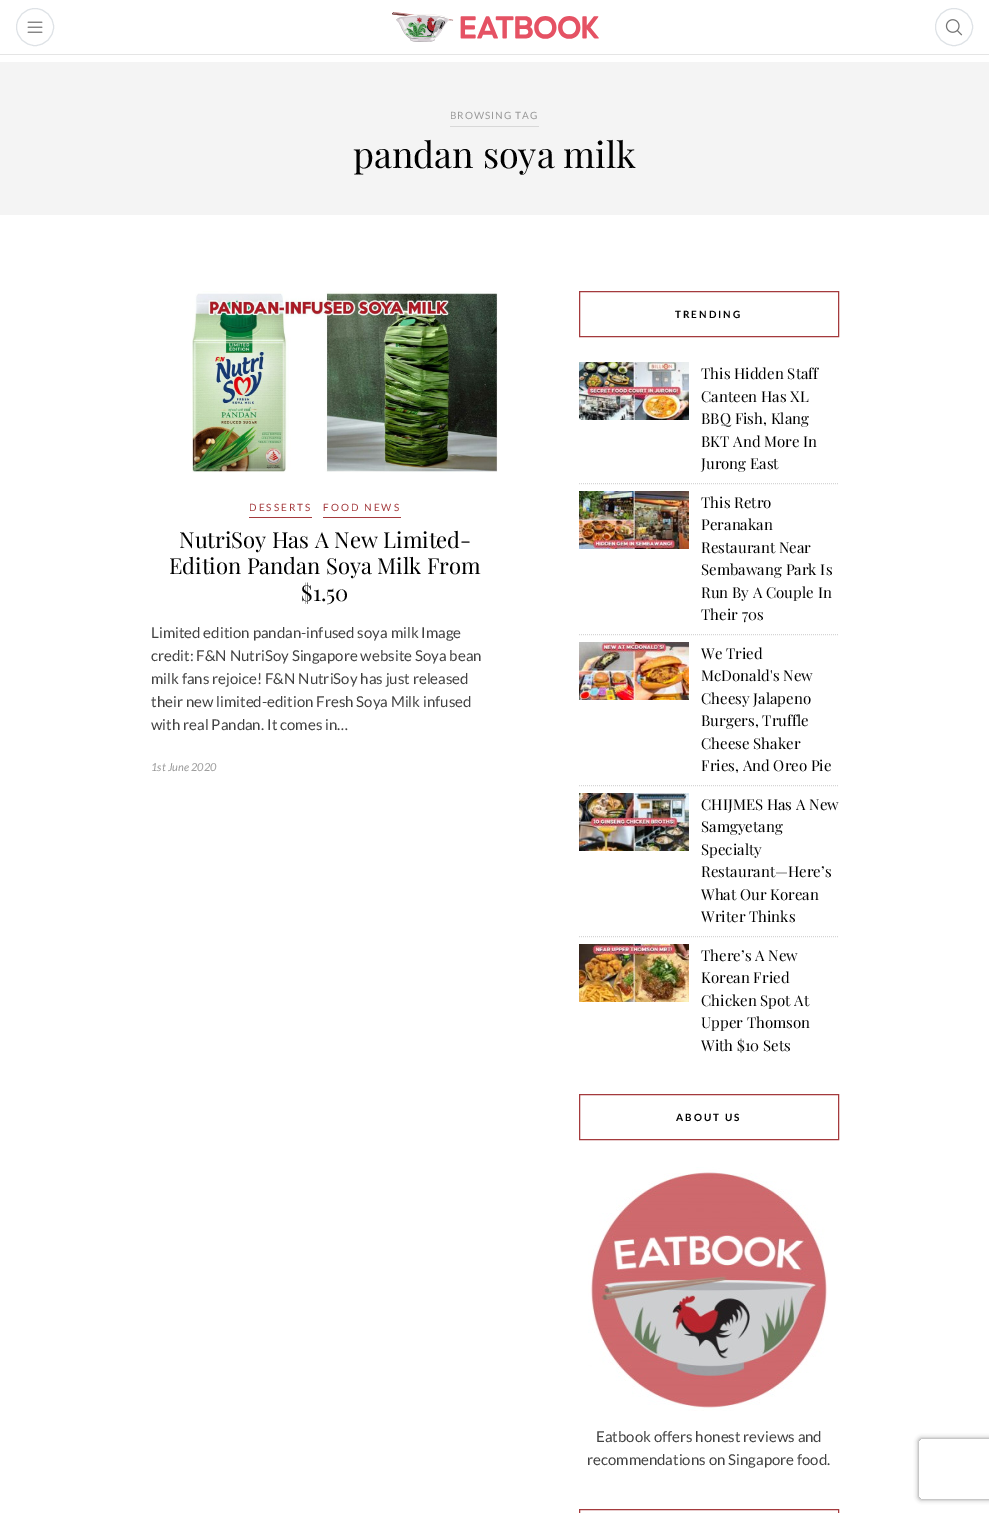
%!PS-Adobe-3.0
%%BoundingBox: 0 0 989 1513
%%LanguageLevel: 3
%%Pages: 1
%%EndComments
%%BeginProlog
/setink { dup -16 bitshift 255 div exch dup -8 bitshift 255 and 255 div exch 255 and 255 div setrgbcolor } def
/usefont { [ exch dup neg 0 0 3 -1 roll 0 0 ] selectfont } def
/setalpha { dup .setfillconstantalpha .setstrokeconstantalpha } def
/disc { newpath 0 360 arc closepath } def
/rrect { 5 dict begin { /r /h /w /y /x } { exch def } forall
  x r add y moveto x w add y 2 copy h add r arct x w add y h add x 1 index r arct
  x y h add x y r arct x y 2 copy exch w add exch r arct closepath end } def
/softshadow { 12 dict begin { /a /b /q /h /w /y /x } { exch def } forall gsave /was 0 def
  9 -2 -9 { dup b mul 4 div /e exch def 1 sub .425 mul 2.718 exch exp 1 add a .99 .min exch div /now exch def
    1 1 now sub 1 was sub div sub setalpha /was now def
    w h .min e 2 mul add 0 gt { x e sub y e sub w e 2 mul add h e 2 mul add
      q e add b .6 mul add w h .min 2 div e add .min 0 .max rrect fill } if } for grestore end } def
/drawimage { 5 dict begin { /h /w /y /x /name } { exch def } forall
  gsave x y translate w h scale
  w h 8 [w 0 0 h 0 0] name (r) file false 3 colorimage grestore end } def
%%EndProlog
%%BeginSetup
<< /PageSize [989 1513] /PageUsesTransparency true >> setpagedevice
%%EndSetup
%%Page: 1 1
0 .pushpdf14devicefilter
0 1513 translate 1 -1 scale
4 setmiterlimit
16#FFFFFF setink
0 0 989 1513 rectfill
16#E5E5E5 setink
0 54 989 1 rectfill
16#DEE2E6 setink
35 27 18.5 disc stroke
(img1.raw) 27 21 16 12 drawimage
(img2.raw) 392 12 207 30 drawimage
954 27 18.5 disc stroke
(img3.raw) 945 19 18 17 drawimage
16#F4F4F4 setink
0 62 989 153 rectfill
16#D8D8D8 setink
450 126 89 1 rectfill
/Lato-Regular 10 usefont
16#999999 setink
450 119 moveto 1 0 (BROWSING TAG) ashow
/PlayfairDisplay-Regular 36 usefont
16#000000 setink
353 168 moveto (pandan soya milk) show
(img4.raw) 192 291 306 182 drawimage
16#A43A3D setink
249 517 63 1 rectfill
/Lato-Regular 10 usefont
249 511 moveto 2 0 (DESSERTS) ashow
323 517 78 1 rectfill
323 511 moveto 2 0 (FOOD NEWS) ashow
/PlayfairDisplay-Regular 22 usefont
16#000000 setink
[
    [(NutriSoy Has A New Limited-) 179 548]
    [(Edition Pandan Soya Milk From) 169 574]
    [($1.50) 301 601]
] { aload pop moveto show } forall
/Lato-Regular 15 usefont
16#424242 setink
[
    [(Limited edition pandan-infused soya milk Image) 151 638]
    [(credit: F&N NutriSoy Singapore website Soya bean) 151 661]
    [(milk fans rejoice! F&N NutriSoy has just released) 151 684]
    [(their new limited-edition Fresh Soya Milk infused) 151 707]
    [(with real Pandan. It comes in…) 151 730]
] { aload pop moveto show } forall
/Lato-Italic 11 usefont
16#999999 setink
151 771 moveto (1st June 2020) show
16#A43A3D setink
579.5 291.5 259 45 rectstroke
/Lato-Bold 10 usefont
16#000000 setink
675 318 moveto 2 0 (TRENDING) ashow
16#D5D5D5 setink
[1 1] 0 setdash
579 483.5 moveto 839 483.5 lineto stroke
(img5.raw) 579 362 110 58 drawimage
/PlayfairDisplay-Regular 15 usefont
16#000000 setink
[
    [(This Hidden Staff) 701 379]
    [(Canteen Has XL) 701 402]
    [(BBQ Fish, Klang) 701 424]
    [(BKT And More In) 701 447]
    [(Jurong East) 701 469]
] { aload pop moveto show } forall
16#D5D5D5 setink
579 634.5 moveto 839 634.5 lineto stroke
(img6.raw) 579 491 110 58 drawimage
16#000000 setink
[
    [(This Retro) 701 508]
    [(Peranakan) 701 530]
    [(Restaurant Near) 701 553]
    [(Sembawang Park Is) 701 575]
    [(Run By A Couple In) 701 598]
    [(Their 70s) 701 620]
] { aload pop moveto show } forall
16#D5D5D5 setink
579 785.5 moveto 839 785.5 lineto stroke
(img7.raw) 579 642 110 58 drawimage
16#000000 setink
[
    [(We Tried) 701 659]
    [(McDonald's New) 701 681]
    [(Cheesy Jalapeno) 701 704]
    [(Burgers, Truffle) 701 726]
    [(Cheese Shaker) 701 749]
    [(Fries, And Oreo Pie) 701 771]
] { aload pop moveto show } forall
16#D5D5D5 setink
579 936.5 moveto 839 936.5 lineto stroke
(img8.raw) 579 793 110 58 drawimage
16#000000 setink
[
    [(CHIJMES Has A New) 701 810]
    [(Samgyetang) 701 832]
    [(Specialty) 701 855]
    [(Restaurant—Here’s) 701 877]
    [(What Our Korean) 701 900]
    [(Writer Thinks) 701 922]
] { aload pop moveto show } forall
(img9.raw) 579 944 110 58 drawimage
[
    [(There’s A New) 701 961]
    [(Korean Fried) 701 983]
    [(Chicken Spot At) 701 1006]
    [(Upper Thomson) 701 1028]
    [(With $10 Sets) 701 1051]
] { aload pop moveto show } forall
16#A43A3D setink
[] 0 setdash
579.5 1094.5 259 45 rectstroke
/Lato-Bold 10 usefont
16#000000 setink
676 1121 moveto 2 0 (ABOUT US) ashow
(img10.raw) 588 1167 240 244 drawimage
/Lato-Regular 15 usefont
16#424242 setink
596 1442 moveto (Eatbook offers honest reviews and) show
587 1465 moveto (recommendations on Singapore food.) show
16#A43A3D setink
579.5 1509.5 259 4 rectstroke
gsave
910 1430 moveto 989 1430 lineto 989 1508 lineto 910 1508 lineto closepath 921 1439 moveto 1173 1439 lineto 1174 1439 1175 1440 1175 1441 curveto 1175 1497 lineto 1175 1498 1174 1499 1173 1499 curveto 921 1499 lineto 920 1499 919 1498 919 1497 curveto 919 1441 lineto 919 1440 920 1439 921 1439 curveto closepath eoclip newpath
16#808080 setink
919 1439 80 60 2 2.5 1 softshadow
grestore
.poppdf14devicefilter showpage
%%EOF
